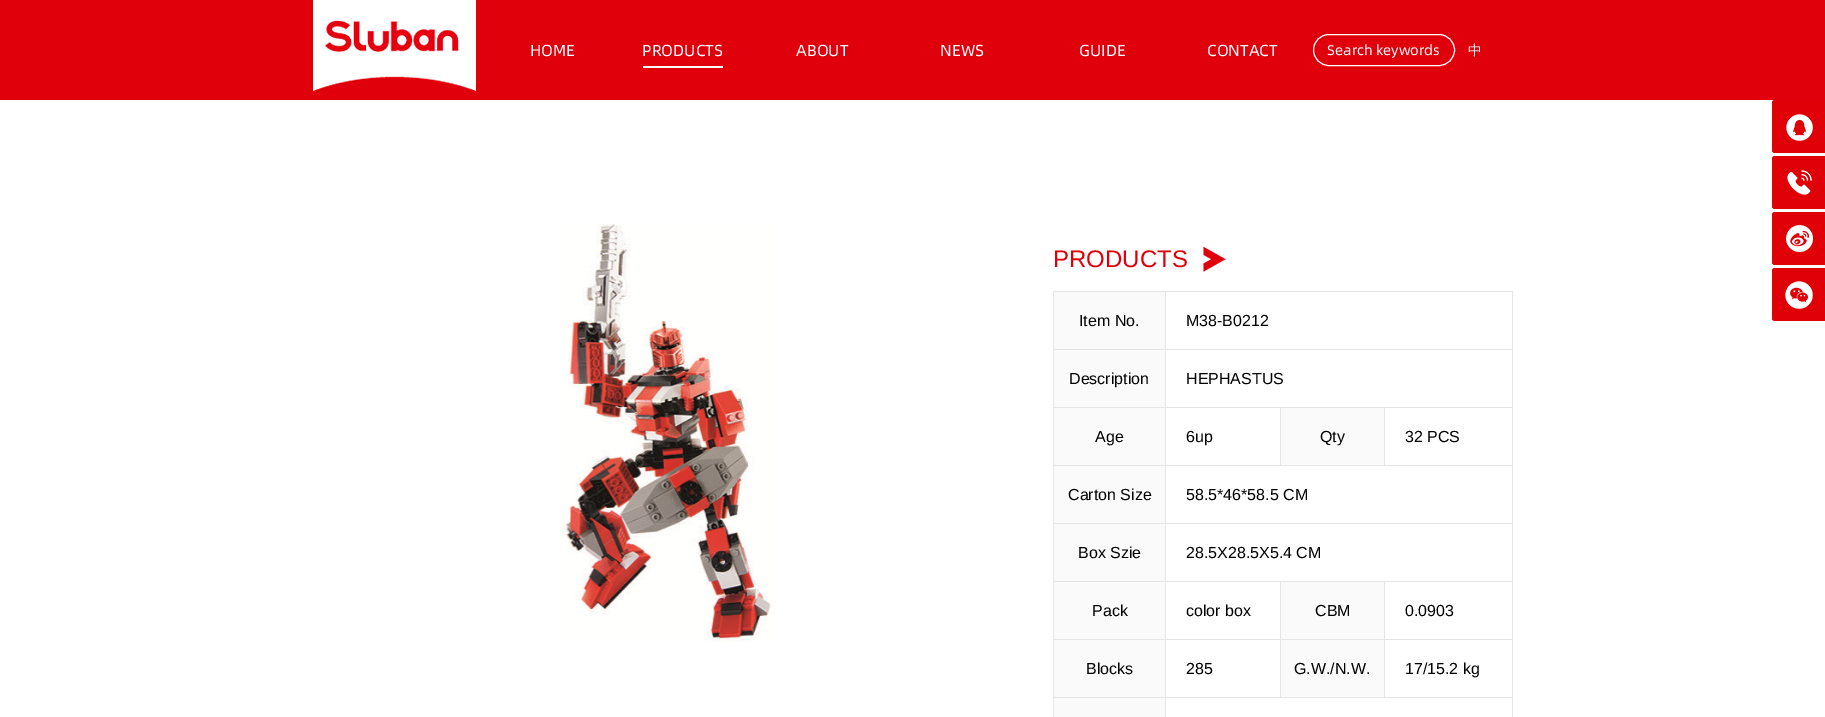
%!PS-Adobe-3.0
%%BoundingBox: 0 0 1825 717
%%LanguageLevel: 3
%%Pages: 1
%%EndComments
%%BeginProlog
/setink { dup -16 bitshift 255 div exch dup -8 bitshift 255 and 255 div exch 255 and 255 div setrgbcolor } def
/usefont { [ exch dup neg 0 0 3 -1 roll 0 0 ] selectfont } def
/rrect { 5 dict begin { /r /h /w /y /x } { exch def } forall
  x r add y moveto x w add y 2 copy h add r arct x w add y h add x 1 index r arct
  x y h add x y r arct x y 2 copy exch w add exch r arct closepath end } def
/drawimage { 5 dict begin { /h /w /y /x /name } { exch def } forall
  gsave x y translate w h scale
  w h 8 [w 0 0 h 0 0] name (r) file false 3 colorimage grestore end } def
%%EndProlog
%%BeginSetup
<< /PageSize [1825 717] >> setpagedevice
%%EndSetup
%%Page: 1 1
0 717 translate 1 -1 scale
4 setmiterlimit
16#FFFFFF setink
0 0 1825 717 rectfill
16#E0000B setink
0 0 1825 100 rectfill
(img1.raw) 313 0 163 91 drawimage
/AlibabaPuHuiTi-Regular 16 usefont
16#FFFFFF setink
530 56 moveto (HOME) show
642 56 moveto (PRODUCTS) show
643 66 80 2 rectfill
[
    [(ABOUT) 796 56]
    [(NEWS) 940 56]
    [(GUIDE) 1079 56]
    [(CONTACT) 1207 56]
] { aload pop moveto show } forall
1313.5 34.5 141 31 15.5 rrect stroke
/AlibabaPuHuiTi-Regular 14 usefont
1327 55 moveto (Search keywords) show
/WenQuanYiZenHei-Medium 14 usefont
1468 55 moveto (中) show
(img2.raw) 561 224 214 418 drawimage
/LiberationSans-Regular 24 usefont
16#E0000A setink
1053 267 moveto (PRODUCTS) show
(img3.raw) 1203 246 23 26 drawimage
[
    [1053 291 460 1 16#E5E5E5]
    [1053 291 1 426 16#E5E5E5]
    [1054 292 111 57 16#FAFAFA]
    [1165 292 1 425 16#E5E5E5]
    [1054 349 112 1 16#E5E5E5]
] { aload pop setink rectfill } forall
/LiberationSans-Regular 16 usefont
16#000000 setink
1079 326 moveto (Item No.) show
16#E5E5E5 setink
1512 292 1 425 rectfill
1166 349 347 1 rectfill
16#000000 setink
1186 326 moveto (M38-B0212) show
16#FAFAFA setink
1054 350 111 57 rectfill
16#E5E5E5 setink
1054 407 459 1 rectfill
16#000000 setink
1069 384 moveto (Description) show
1186 384 moveto (HEPHASTUS) show
16#FAFAFA setink
1054 408 111 57 rectfill
16#E5E5E5 setink
1054 465 112 1 rectfill
16#000000 setink
1095 442 moveto (Age) show
16#E5E5E5 setink
1280 408 1 58 rectfill
1166 465 115 1 rectfill
16#000000 setink
1186 442 moveto (6up) show
[
    [1281 408 103 57 16#FAFAFA]
    [1384 408 1 58 16#E5E5E5]
    [1281 465 232 1 16#E5E5E5]
] { aload pop setink rectfill } forall
16#000000 setink
1320 442 moveto (Qty) show
1405 442 moveto (32 PCS) show
16#FAFAFA setink
1054 466 111 57 rectfill
16#E5E5E5 setink
1054 523 459 1 rectfill
16#000000 setink
1068 500 moveto (Carton Size) show
1186 500 moveto (58.5*46*58.5 CM) show
16#FAFAFA setink
1054 524 111 57 rectfill
16#E5E5E5 setink
1054 581 459 1 rectfill
16#000000 setink
1078 558 moveto (Box Szie) show
1186 558 moveto (28.5X28.5X5.4 CM) show
16#FAFAFA setink
1054 582 111 57 rectfill
16#E5E5E5 setink
1054 639 112 1 rectfill
16#000000 setink
1092 616 moveto (Pack) show
16#E5E5E5 setink
1280 582 1 116 rectfill
1166 639 115 1 rectfill
16#000000 setink
1186 616 moveto (color box) show
[
    [1281 582 103 57 16#FAFAFA]
    [1384 582 1 116 16#E5E5E5]
    [1281 639 232 1 16#E5E5E5]
] { aload pop setink rectfill } forall
16#000000 setink
1315 616 moveto (CBM) show
1405 616 moveto (0.0903) show
16#FAFAFA setink
1054 640 111 57 rectfill
16#E5E5E5 setink
1054 697 459 1 rectfill
16#000000 setink
1086 674 moveto (Blocks) show
1186 674 moveto (285) show
16#FAFAFA setink
1281 640 103 57 rectfill
16#000000 setink
1294 674 moveto (G.W./N.W.) show
1405 674 moveto (17/15.2 kg) show
16#FAFAFA setink
1054 698 111 19 rectfill
16#E00008 setink
1772 100 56 53 3 rrect fill
(img4.raw) 1772 100 41 53 drawimage
1772 156 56 53 3 rrect fill
(img5.raw) 1772 156 40 53 drawimage
1772 212 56 53 3 rrect fill
(img6.raw) 1772 212 41 53 drawimage
1772 268 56 53 3 rrect fill
(img7.raw) 1772 268 41 53 drawimage
showpage
%%EOF
